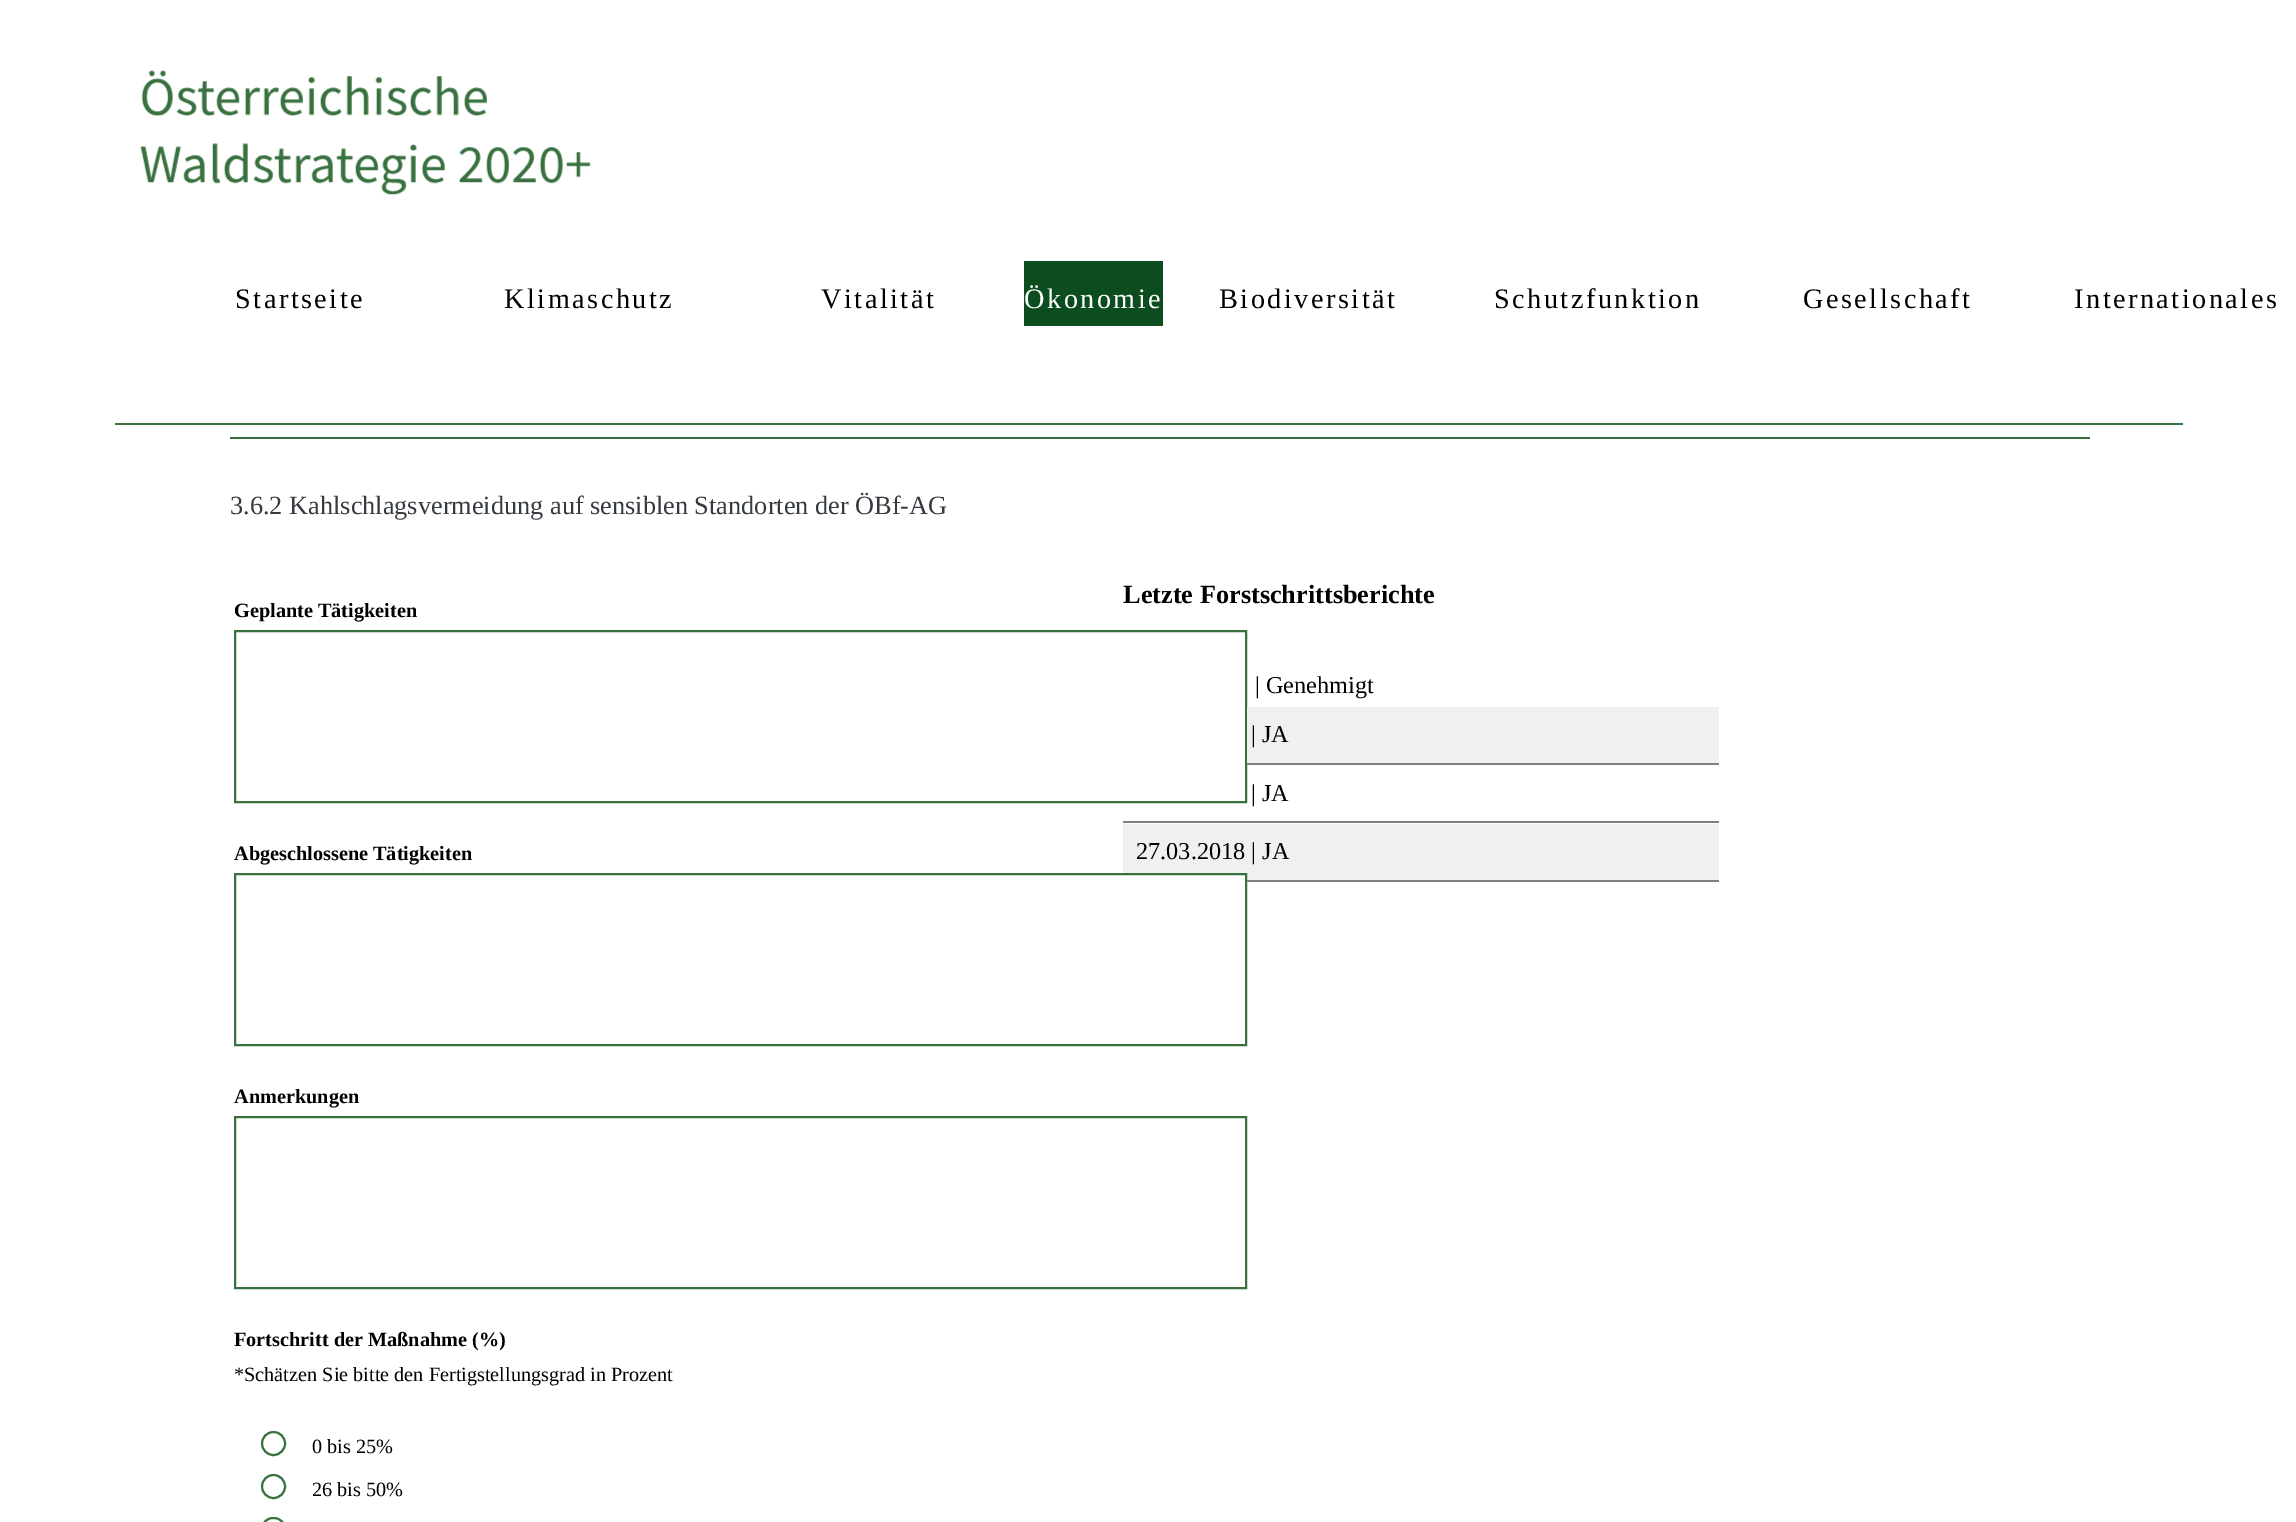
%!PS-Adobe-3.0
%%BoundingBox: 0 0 2296 1522
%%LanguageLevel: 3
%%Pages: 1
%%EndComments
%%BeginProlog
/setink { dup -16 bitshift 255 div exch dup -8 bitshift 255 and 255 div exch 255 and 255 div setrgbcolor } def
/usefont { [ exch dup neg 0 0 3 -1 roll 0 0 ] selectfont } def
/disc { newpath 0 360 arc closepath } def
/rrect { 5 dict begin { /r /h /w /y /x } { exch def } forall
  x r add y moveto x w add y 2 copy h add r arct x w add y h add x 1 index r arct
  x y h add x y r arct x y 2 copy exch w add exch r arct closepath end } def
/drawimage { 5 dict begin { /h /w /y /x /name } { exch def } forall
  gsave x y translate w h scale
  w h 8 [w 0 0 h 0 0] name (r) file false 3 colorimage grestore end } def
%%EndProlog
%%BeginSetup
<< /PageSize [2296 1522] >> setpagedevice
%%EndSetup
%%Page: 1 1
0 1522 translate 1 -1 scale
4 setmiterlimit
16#FFFFFF setink
0 0 2296 1522 rectfill
(img1.raw) 140 70 451 125 drawimage
16#38713F setink
115 423 2068 2 rectfill
/LiberationSerif-Regular 28.25 usefont
16#000000 setink
235 308 moveto 2.5 0 (Startseite) ashow
504 308 moveto 2.5 0 (Klimaschutz) ashow
821 308 moveto 2.5 0 (Vitalität) ashow
16#0B4D1F setink
1024 261 139 65 rectfill
16#FFFFFF setink
1024 308 moveto 2.5 0 (Ökonomie) ashow
16#000000 setink
1219 308 moveto 2.5 0 (Biodiversität) ashow
1494 308 moveto 2.5 0 (Schutzfunktion) ashow
1803 308 moveto 2.5 0 (Gesellschaft) ashow
2074 308 moveto 2.5 0 (Internationales) ashow
16#38713F setink
230 437 1860 2 rectfill
/LiberationSerif-Regular 26.3 usefont
16#343A40 setink
230 514 moveto (3.6.2 Kahlschlagsvermeidung auf sensiblen Standorten der ÖBf-AG) show
/LiberationSerif-Bold 20.25 usefont
16#000000 setink
234 617 moveto (Geplante Tätigkeiten) show
16#38713F setink
2 setlinewidth
235 631 1011 171 rectstroke
16#000000 setink
234 860 moveto (Abgeschlossene Tätigkeiten) show
16#F0F0F0 setink
1123 824 596 56 rectfill
16#FFFFFF setink
1123 875 122 5 rectfill
16#38713F setink
235 874 1011 171 rectstroke
16#000000 setink
234 1103 moveto (Anmerkungen) show
16#38713F setink
235 1117 1011 171 rectstroke
16#000000 setink
234 1346 moveto (Fortschritt der Maßnahme \(%\)) show
/LiberationSerif-Regular 20.25 usefont
234 1381 moveto (*Schätzen Sie bitte den Fertigstellungsgrad in Prozent) show
16#38713F setink
273.5 1443.5 11.5 disc stroke
16#000000 setink
312 1453 moveto (0 bis 25%) show
16#38713F setink
273.5 1486.5 11.5 disc stroke
16#000000 setink
312 1496 moveto (26 bis 50%) show
16#38713F setink
262 1518 23 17 11 rrect stroke
/LiberationSerif-Bold 26.3 usefont
16#000000 setink
1123 603 moveto (Letzte Forstschrittsberichte) show
/LiberationSerif-Regular 24.25 usefont
1255 693 moveto (| Genehmigt) show
16#F0F0F0 setink
1247 707 472 56 rectfill
16#808080 setink
1247 763 472 2 rectfill
16#000000 setink
1251 742 moveto (| JA) show
16#808080 setink
1123 821 596 2 rectfill
16#000000 setink
1251 801 moveto (| JA) show
16#808080 setink
1247 880 472 2 rectfill
16#000000 setink
1136 859 moveto (27.03.2018 | JA) show
showpage
%%EOF
